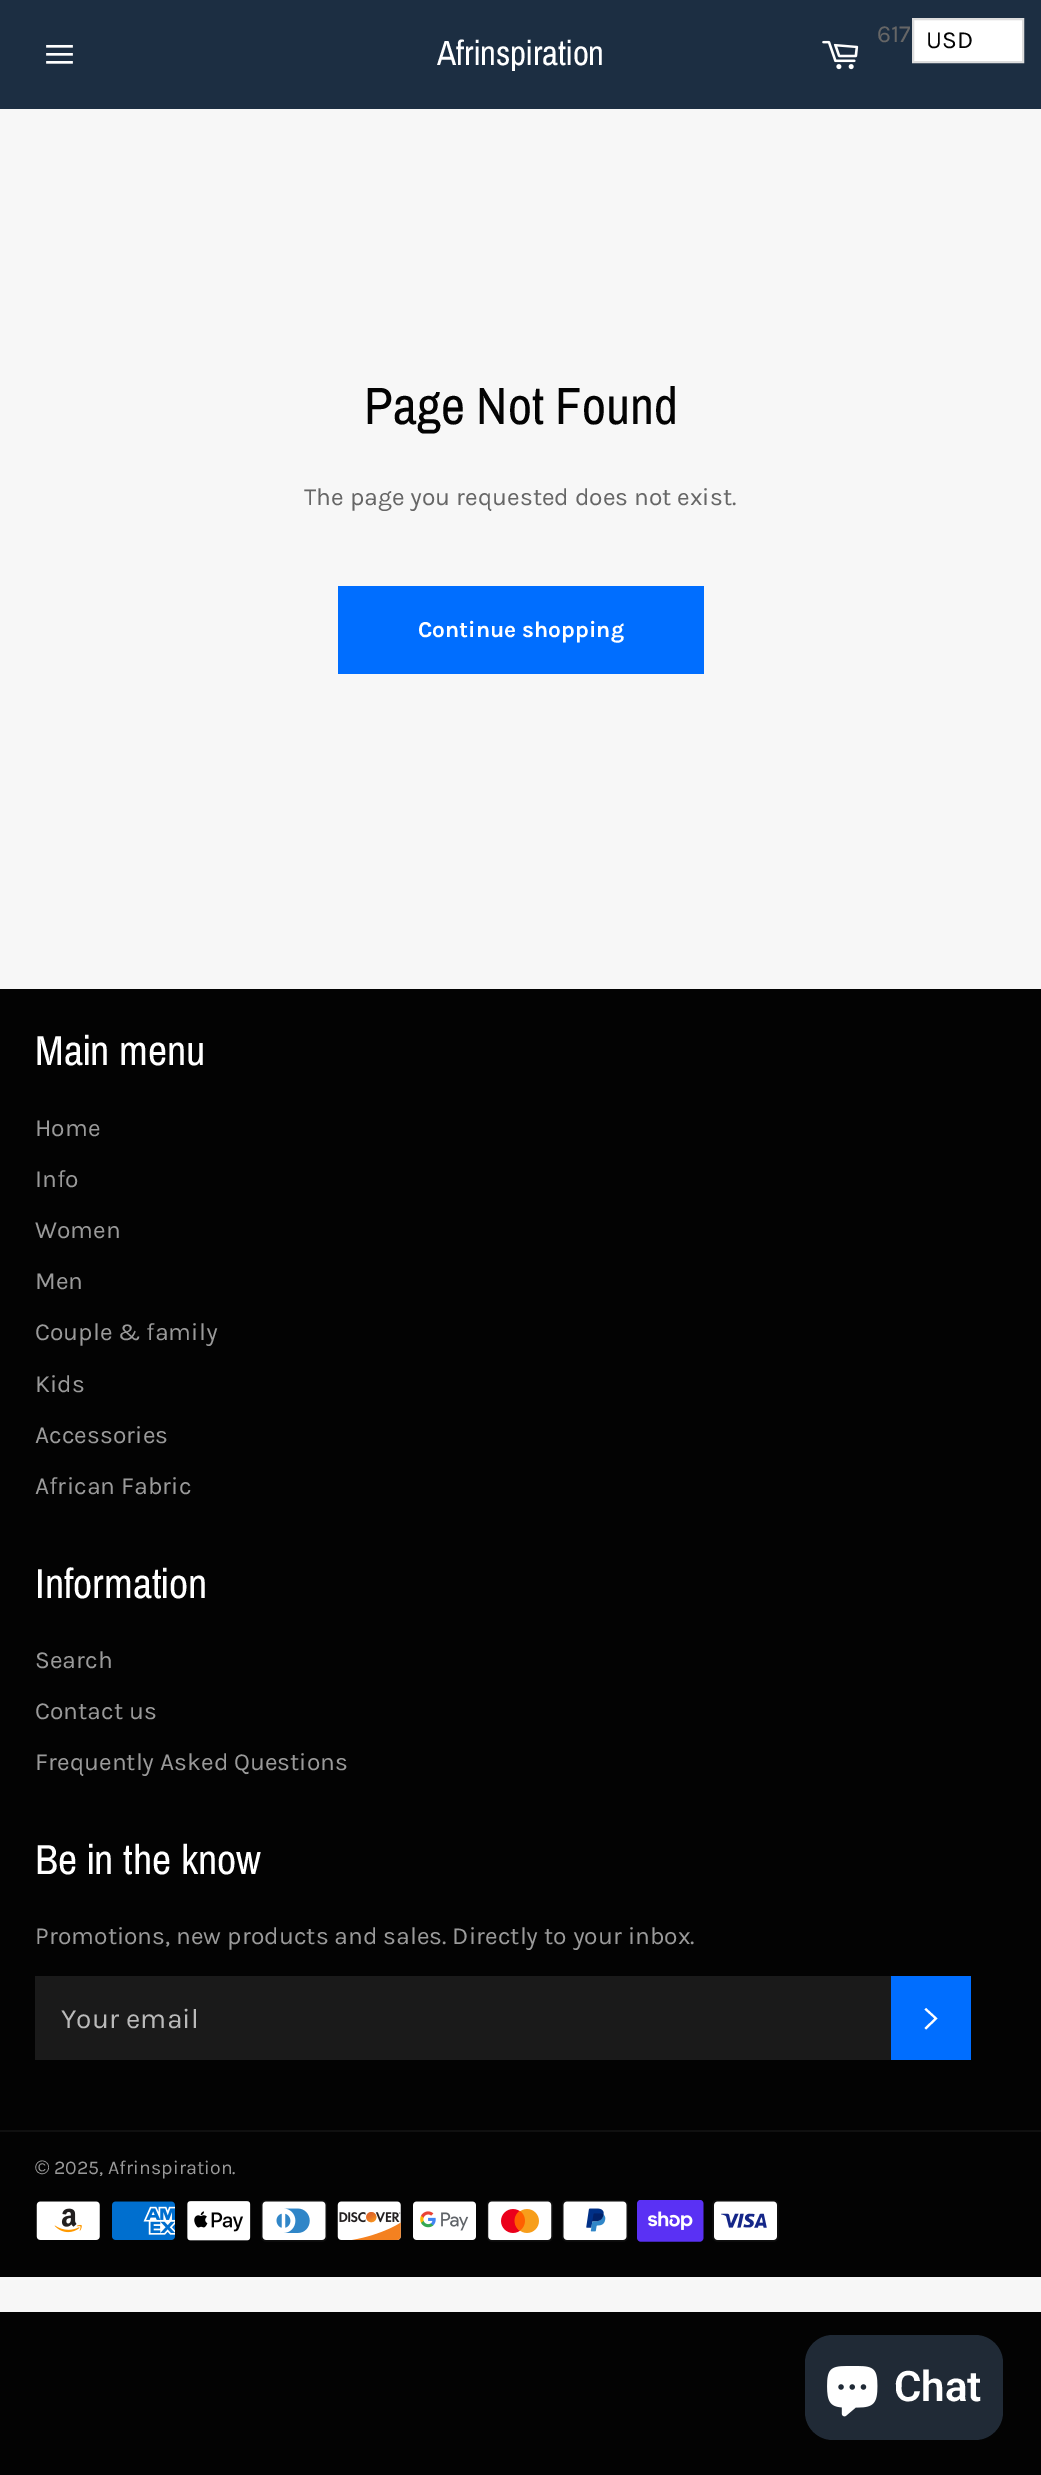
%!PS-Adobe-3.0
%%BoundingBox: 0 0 1041 2475
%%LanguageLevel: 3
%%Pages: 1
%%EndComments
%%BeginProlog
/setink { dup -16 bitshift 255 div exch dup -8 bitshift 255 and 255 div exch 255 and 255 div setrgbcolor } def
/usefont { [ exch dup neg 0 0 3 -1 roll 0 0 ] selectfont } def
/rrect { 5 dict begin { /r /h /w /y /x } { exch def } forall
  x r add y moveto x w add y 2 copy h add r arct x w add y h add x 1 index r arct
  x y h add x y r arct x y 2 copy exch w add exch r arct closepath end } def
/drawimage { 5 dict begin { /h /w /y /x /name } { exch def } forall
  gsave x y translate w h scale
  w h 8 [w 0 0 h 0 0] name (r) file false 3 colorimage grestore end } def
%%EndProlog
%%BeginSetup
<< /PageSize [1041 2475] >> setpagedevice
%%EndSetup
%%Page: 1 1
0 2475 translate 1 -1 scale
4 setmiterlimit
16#030303 setink
0 0 1041 2475 rectfill
16#F7F7F7 setink
0 109 1041 2203 rectfill
16#1C2E42 setink
0 0 1041 109 rectfill
(img1.raw) 46 44 27 20 drawimage
/ArchivoNarrow-Regular 35 usefont
16#FFFFFF setink
437 65 moveto (Afrinspiration) show
(img2.raw) 822 40 37 30 drawimage
/Karla-Regular 24.5 usefont
16#666666 setink
877 42 moveto (617) show
16#FFFFFF setink
913 19 moveto 1023 19 lineto 1023 62 lineto 913 62 lineto closepath gsave fill grestore
16#DDDDDD setink
2 setlinewidth
stroke
16#030303 setink
926 48 moveto (USD) show
/ArchivoNarrow-Regular 52.5 usefont
364 424 moveto (Page Not Found) show
/Karla-Regular 24.5 usefont
16#666666 setink
304 505 moveto (The page you requested does not exist.) show
16#006EFF setink
338 586 366 88 rectfill
/Karla-Bold 22.75 usefont
16#FFFFFF setink
418 637 moveto (Continue shopping) show
16#030303 setink
0 989 1041 1288 rectfill
/ArchivoNarrow-Regular 42 usefont
16#FFFFFF setink
35 1065 moveto (Main menu) show
/Karla-Regular 24.5 usefont
16#9A9A9A setink
[
    [(Home) 35 1136]
    [(Info) 35 1187]
    [(Women) 35 1238]
    [(Men) 35 1289]
    [(Couple & family) 35 1340]
    [(Kids) 35 1392]
    [(Accessories) 35 1443]
    [(African Fabric) 35 1494]
] { aload pop moveto show } forall
/ArchivoNarrow-Regular 42 usefont
16#FFFFFF setink
35 1598 moveto (Information) show
/Karla-Regular 24.5 usefont
16#9A9A9A setink
[
    [(Search) 35 1668]
    [(Contact us) 35 1719]
    [(Frequently Asked Questions) 35 1770]
] { aload pop moveto show } forall
/ArchivoNarrow-Regular 42 usefont
16#FFFFFF setink
35 1874 moveto (Be in the know) show
/Karla-Regular 24.5 usefont
16#9A9A9A setink
35 1944 moveto (Promotions, new products and sales. Directly to your inbox.) show
16#1A1A1A setink
35 1976 856 84 rectfill
/Karla-Regular 28 usefont
16#BABABA setink
61 2028 moveto (Your email) show
16#006EFF setink
891 1976 80 84 rectfill
16#FFFFFF setink
924.5 2009.5 moveto 926 2008 lineto 937.5 2018.5 lineto 926 2029.5 lineto 924.5 2028 lineto 934.5 2018.5 lineto closepath fill
16#101010 setink
0 2130 1041 2 rectfill
/LiberationSans-Regular 19.5 usefont
16#9A9A9A setink
35 2174 moveto (©) show
/Karla-Regular 19.5 usefont
54 2174 moveto (2025, Afrinspiration.) show
(img3.raw) 36 2201 64 39 drawimage
(img4.raw) 112 2201 63 39 drawimage
(img5.raw) 187 2201 64 40 drawimage
(img6.raw) 261 2200 66 42 drawimage
(img7.raw) 337 2201 64 39 drawimage
(img8.raw) 413 2201 63 39 drawimage
(img9.raw) 487 2200 66 42 drawimage
(img10.raw) 562 2200 66 42 drawimage
(img11.raw) 637 2200 67 42 drawimage
(img12.raw) 712 2200 67 42 drawimage
16#202A36 setink
805 2335 198 105 28 rrect fill
(img13.raw) 827 2366 51 51 drawimage
/Roboto-SemiBold 42 usefont
16#FFFFFF setink
894 2401 moveto (Chat) show
showpage
%%EOF
